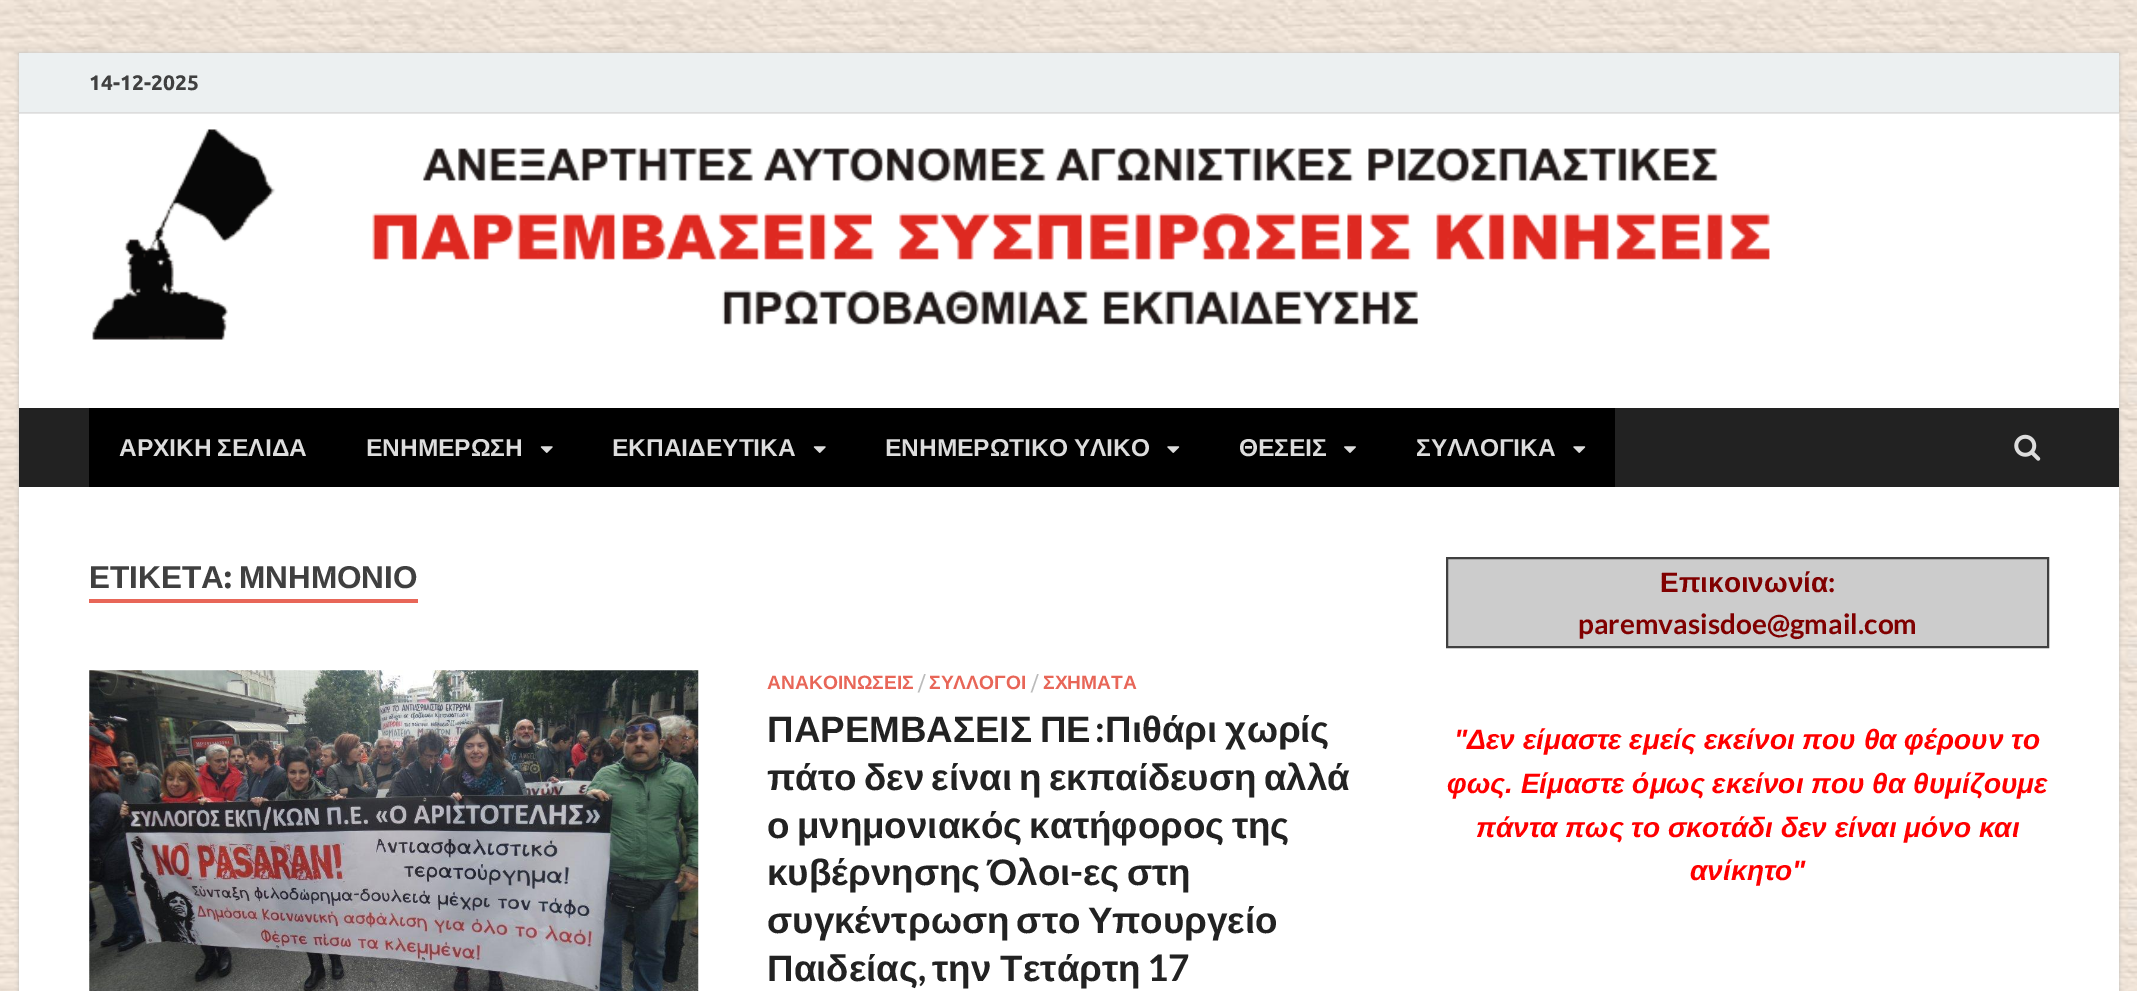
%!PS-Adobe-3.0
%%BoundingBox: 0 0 2137 991
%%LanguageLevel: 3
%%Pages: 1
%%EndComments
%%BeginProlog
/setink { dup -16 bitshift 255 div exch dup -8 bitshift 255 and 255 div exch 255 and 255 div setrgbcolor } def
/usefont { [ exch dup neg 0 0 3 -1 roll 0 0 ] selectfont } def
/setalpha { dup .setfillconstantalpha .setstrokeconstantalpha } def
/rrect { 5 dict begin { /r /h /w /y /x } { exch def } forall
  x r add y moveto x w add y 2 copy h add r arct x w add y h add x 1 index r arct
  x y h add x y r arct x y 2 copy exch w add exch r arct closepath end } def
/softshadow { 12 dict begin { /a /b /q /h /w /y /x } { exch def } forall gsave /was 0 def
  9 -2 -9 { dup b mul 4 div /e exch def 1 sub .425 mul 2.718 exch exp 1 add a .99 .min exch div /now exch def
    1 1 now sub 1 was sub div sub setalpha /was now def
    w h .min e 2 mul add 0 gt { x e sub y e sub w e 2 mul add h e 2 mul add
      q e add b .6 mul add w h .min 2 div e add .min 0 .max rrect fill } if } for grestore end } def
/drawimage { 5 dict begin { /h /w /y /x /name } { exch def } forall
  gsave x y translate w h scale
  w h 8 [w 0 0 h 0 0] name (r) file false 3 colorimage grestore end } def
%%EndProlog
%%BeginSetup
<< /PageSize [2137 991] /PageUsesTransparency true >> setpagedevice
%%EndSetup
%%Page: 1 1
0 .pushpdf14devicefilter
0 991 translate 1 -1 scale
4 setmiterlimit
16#FFFFFF setink
0 0 2137 991 rectfill
(img1.raw) 0 0 2137 991 drawimage
16#BBBBBB setink
19 53 2100 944 0 2 1 softshadow
[
    [19 114 2100 877 16#FFFFFF]
    [19 53 2100 59 16#ECF0F1]
    [19 112 2100 2 16#DDDDDD]
] { aload pop setink rectfill } forall
/Ubuntu-Bold 21 usefont
16#404040 setink
89 90 moveto (14-12-2025) show
(img2.raw) 19 113 2101 246 drawimage
16#222222 setink
19 408 2100 79 rectfill
16#000000 setink
89 408 1526 79 rectfill
/LiberationSans-Bold 24.5 usefont
16#DDDDDD setink
119 456 moveto -1 0 32 (ΑΡΧΙΚΗ ΣΕΛΙΔΑ) widthshow
366 456 moveto (ΕΝΗΜΕΡΩΣΗ) show
(img3.raw) 540 446 13 7 drawimage
612 456 moveto (ΕΚΠΑΙΔΕΥΤΙΚΑ) show
(img3.raw) 813 446 13 7 drawimage
885 456 moveto -1 0 32 (ΕΝΗΜΕΡΩΤΙΚΟ ΥΛΙΚΟ) widthshow
(img4.raw) 1167 446 13 7 drawimage
1239 456 moveto (ΘΕΣΕΙΣ) show
(img5.raw) 1344 446 12 7 drawimage
1416 456 moveto (ΣΥΛΛΟΓΙΚΑ) show
(img4.raw) 1573 446 13 7 drawimage
(img6.raw) 2014 434 27 27 drawimage
/LiberationSans-Bold 31.5 usefont
16#404040 setink
89 588 moveto (ΕΤΙΚΕΤΑ) show
/Ubuntu-Bold 31.5 usefont
224 588 moveto (:) show
16#E86658 setink
89 599 329 4 rectfill
/LiberationSans-Bold 31.5 usefont
16#404040 setink
239 588 moveto (ΜΝΗΜΟΝΙΟ) show
(img7.raw) 89 670 610 321 drawimage
/LiberationSans-Bold 19.25 usefont
16#E86658 setink
767 689 moveto (ΑΝΑΚΟΙΝΩΣΕΙΣ) show
/Ubuntu-Regular 19.25 usefont
16#BBBBBB setink
918 689 moveto (/) show
/LiberationSans-Bold 19.25 usefont
16#E86658 setink
929 689 moveto (ΣΥΛΛΟΓΟΙ) show
/Ubuntu-Regular 19.25 usefont
16#BBBBBB setink
1031 689 moveto (/) show
/LiberationSans-Bold 19.25 usefont
16#E86658 setink
1043 689 moveto (ΣΧΗΜΑΤΑ) show
/LiberationSans-Bold 36.75 usefont
16#222222 setink
767 742 moveto -2 0 32 (ΠΑΡΕΜΒΑΣΕΙΣ ΠΕ) widthshow
/Lato-Bold 36.75 usefont
1095 742 moveto (:) show
/LiberationSans-Bold 36.75 usefont
1105 742 moveto -2 0 32 (Πιθάρι χωρίς) widthshow
767 790 moveto -3 0 32 (πάτο δεν είναι η εκπαίδευση αλλά) widthshow
767 838 moveto -3 0 32 (ο μνημονιακός κατήφορος της) widthshow
767 885 moveto (κυβέρνησης) show
987 885 moveto (Όλοι) show
/Lato-Bold 36.75 usefont
1070 885 moveto (-) show
/LiberationSans-Bold 36.75 usefont
1083 885 moveto -3 0 32 (ες στη) widthshow
767 933 moveto -3 0 32 (συγκέντρωση στο Υπουργείο) widthshow
767 981 moveto (Παιδείας) show
/Lato-Bold 36.75 usefont
918 981 moveto (,) show
/LiberationSans-Bold 36.75 usefont
932 981 moveto -1 0 32 (την Τετάρτη) widthshow
/Lato-Bold 36.75 usefont
1147 981 moveto (17) show
16#CCCCCC setink
1447 558 moveto 2048 558 lineto 2048 647 lineto 1447 647 lineto closepath gsave fill grestore
16#404040 setink
2 setlinewidth
stroke
/LiberationSans-Bold 28 usefont
16#800000 setink
1660 592 moveto (Επικοινωνία) show
/Lato-Bold 28 usefont
1828 592 moveto (:) show
1578 634 moveto (paremvasisdoe@gmail.com) show
/LiberationSans-BoldItalic 28 usefont
16#FF0000 setink
[
    [("Δεν είμαστε εμείς εκείνοι που θα φέρουν το) 1454 749]
    [(φως. Είμαστε όμως εκείνοι που θα θυμίζουμε) 1447 793]
    [(πάντα πως το σκοτάδι δεν είναι μόνο και) 1476 837]
    [(ανίκητο") 1690 880]
] { aload pop moveto show } forall
.poppdf14devicefilter showpage
%%EOF
